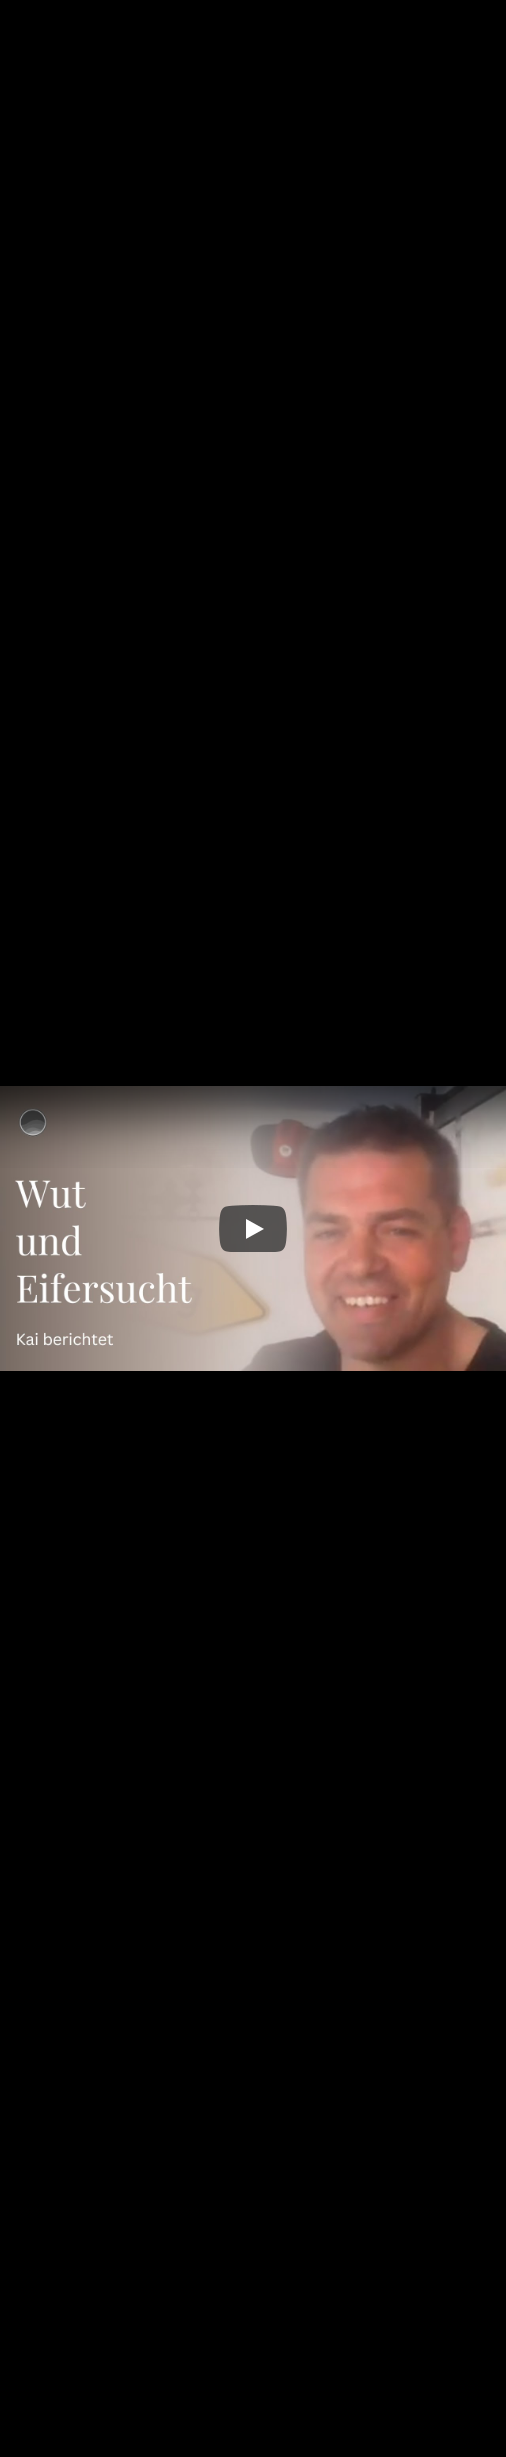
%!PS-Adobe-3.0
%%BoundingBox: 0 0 506 2457
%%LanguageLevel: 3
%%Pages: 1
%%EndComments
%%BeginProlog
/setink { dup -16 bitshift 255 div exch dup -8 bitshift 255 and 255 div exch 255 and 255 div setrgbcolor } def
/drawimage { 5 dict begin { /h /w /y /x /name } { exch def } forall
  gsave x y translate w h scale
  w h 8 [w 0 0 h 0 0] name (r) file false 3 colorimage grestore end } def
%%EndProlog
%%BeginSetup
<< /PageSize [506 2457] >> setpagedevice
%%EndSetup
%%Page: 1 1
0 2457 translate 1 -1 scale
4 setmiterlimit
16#000000 setink
0 0 506 2457 rectfill
(img1.raw) 0 1086 506 285 drawimage
(img2.raw) 0 1086 506 82 drawimage
(img3.raw) 219 1205 68 47 drawimage
showpage
%%EOF
